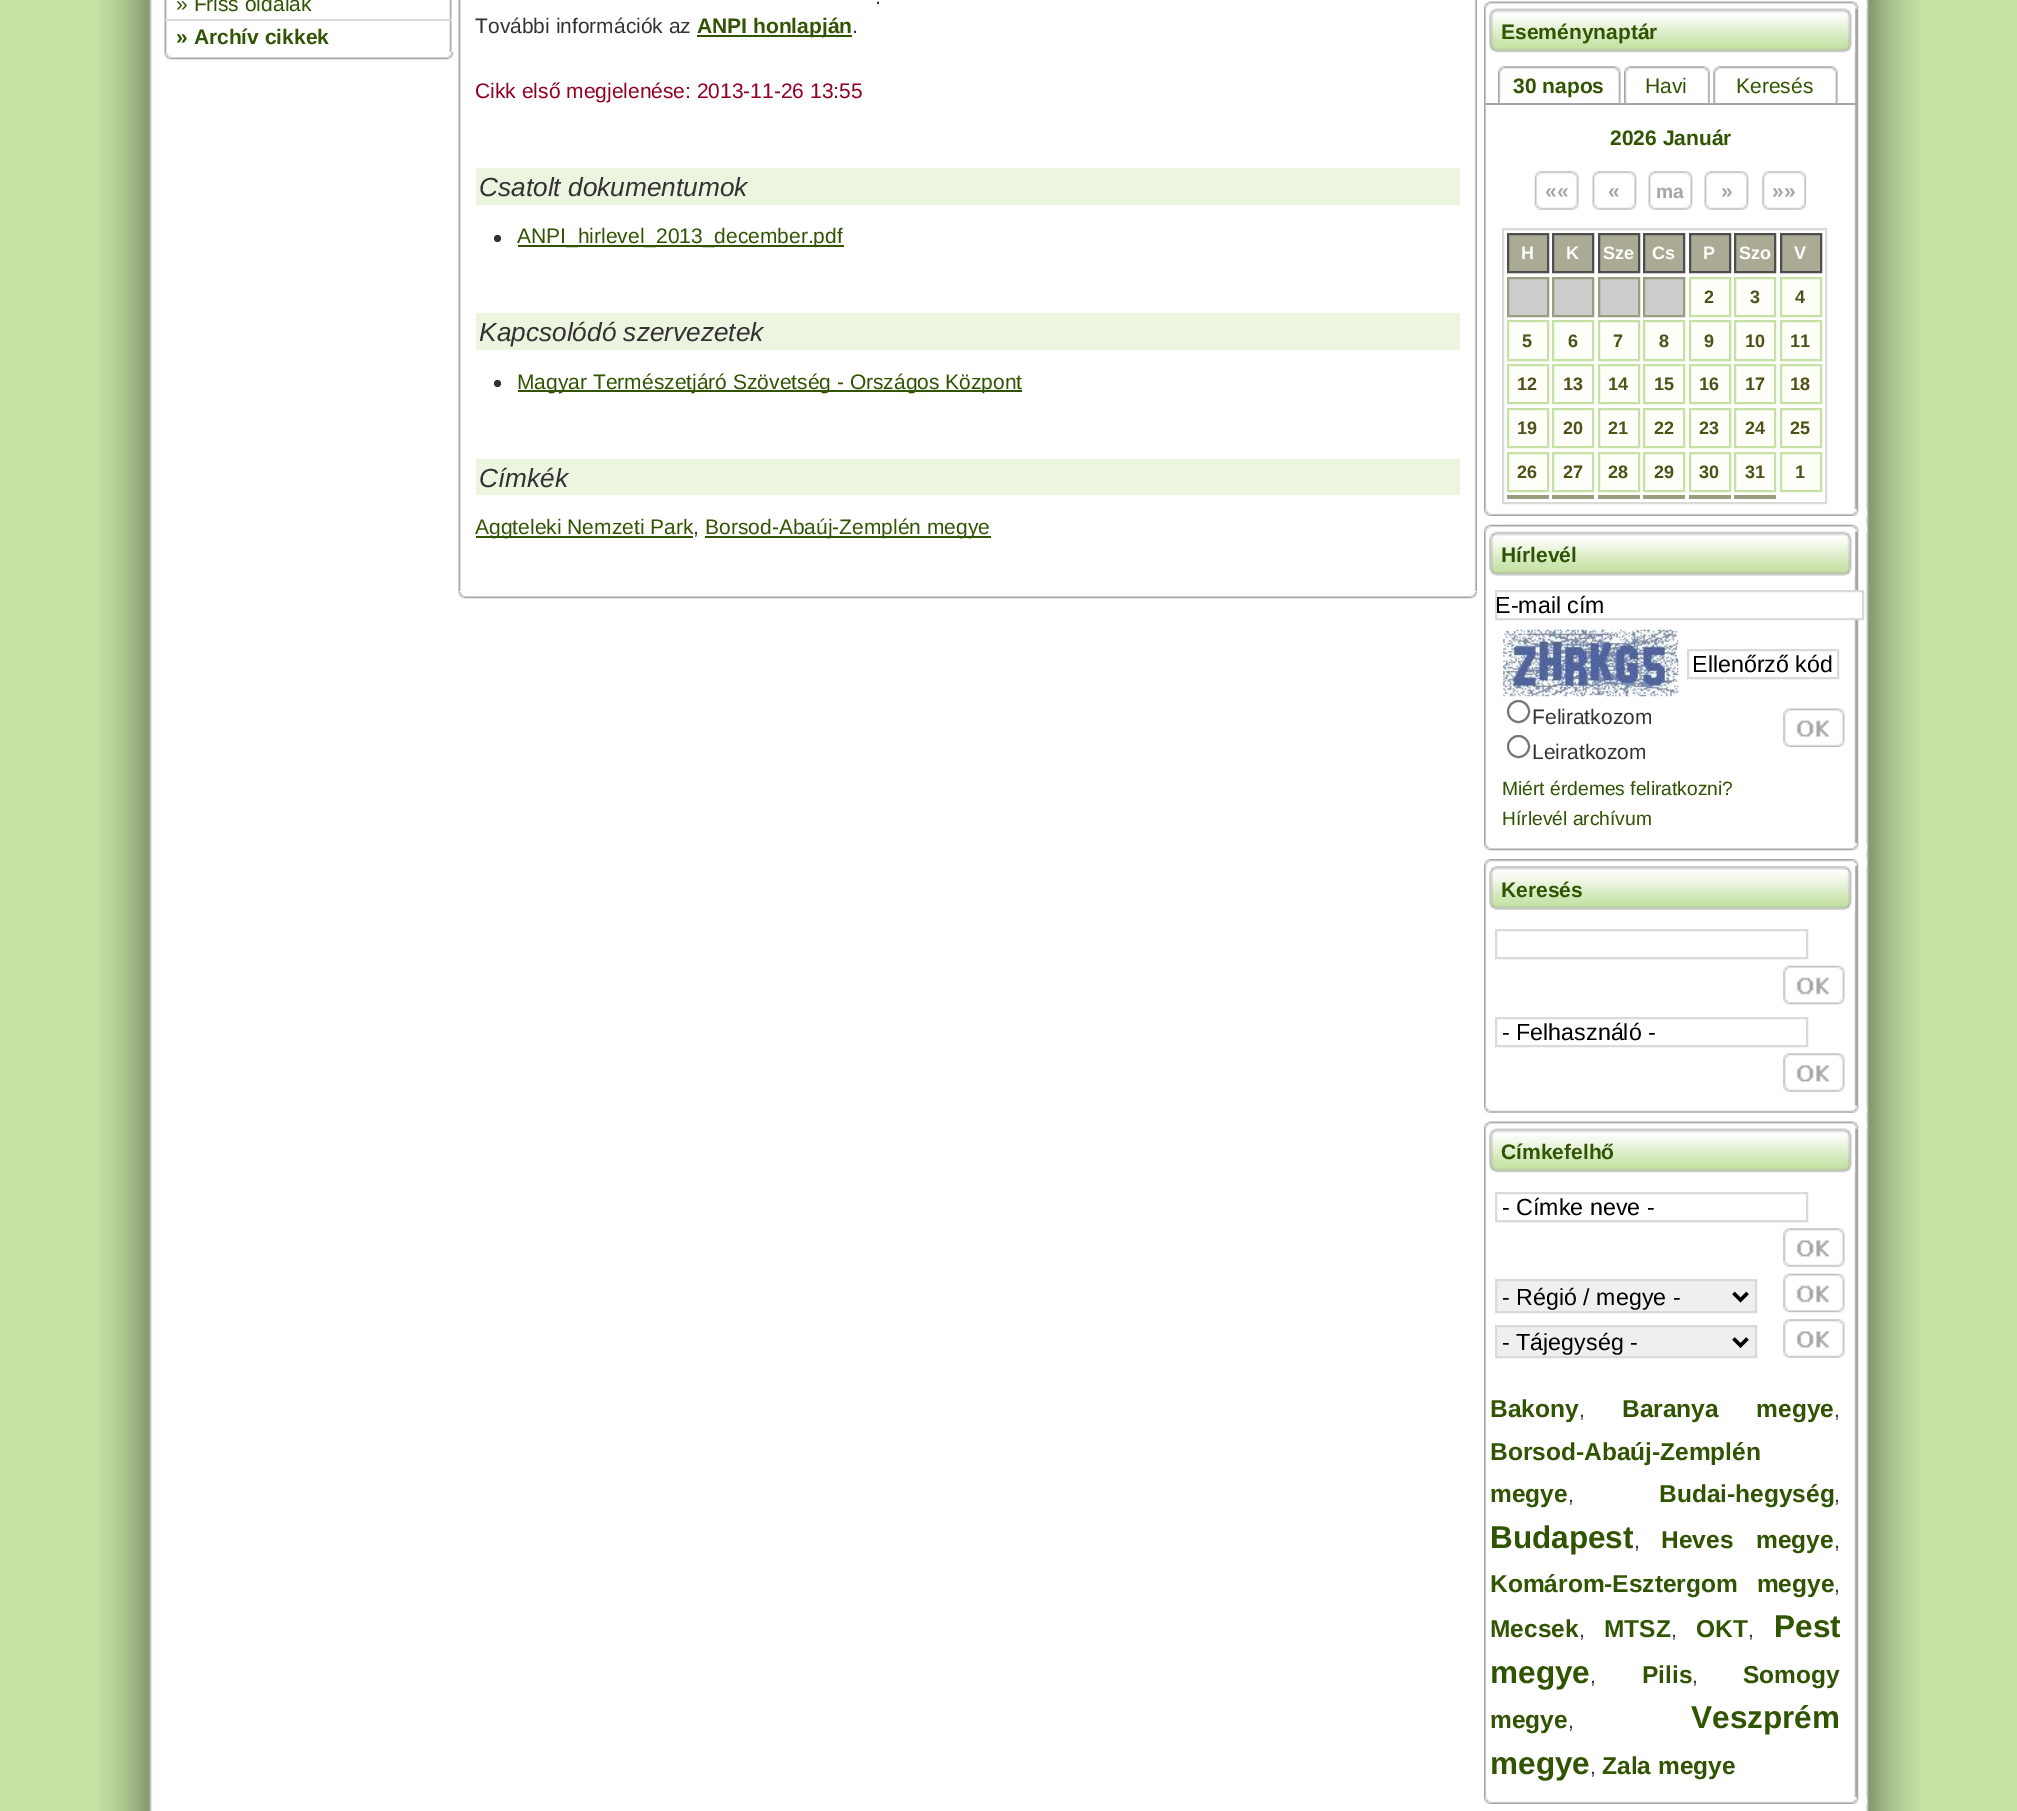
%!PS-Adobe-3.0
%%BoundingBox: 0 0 2017 1811
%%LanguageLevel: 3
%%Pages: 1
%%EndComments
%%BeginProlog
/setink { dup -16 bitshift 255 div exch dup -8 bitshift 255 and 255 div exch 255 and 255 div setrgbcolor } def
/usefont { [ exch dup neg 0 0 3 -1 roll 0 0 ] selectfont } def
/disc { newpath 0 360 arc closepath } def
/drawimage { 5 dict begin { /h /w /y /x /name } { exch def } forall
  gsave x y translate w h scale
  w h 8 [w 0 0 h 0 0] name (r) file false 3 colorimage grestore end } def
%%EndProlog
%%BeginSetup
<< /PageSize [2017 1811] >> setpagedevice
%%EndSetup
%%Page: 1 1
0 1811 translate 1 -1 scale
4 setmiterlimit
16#C5E1A3 setink
0 0 2017 1811 rectfill
(img1.raw) 99 0 1820 1811 drawimage
(img2.raw) 164 0 288 53 drawimage
16#DADADA setink
165 19 287 2 rectfill
/LiberationSans-Regular 21 usefont
16#305401 setink
176 11 moveto (» Friss oldalak) show
/LiberationSans-Bold 21 usefont
176 44 moveto (» Archív cikkek) show
(img3.raw) 164 52 290 8 drawimage
(img5.raw) 458 591 1019 8 drawimage
16#FFFFFF setink
459 591 1018 1 rectfill
(img4.raw) 458 0 1019 592 drawimage
/LiberationSans-Regular 21 usefont
16#333333 setink
875 4 moveto (.) show
475 33 moveto (További információk az) show
16#305401 setink
697 35 155 2 rectfill
/LiberationSans-Bold 21 usefont
697 33 moveto (ANPI honlapján) show
/LiberationSans-Regular 21 usefont
16#333333 setink
852 33 moveto (.) show
16#910021 setink
475 98 moveto (Cikk első megjelenése: 2013-11-26 13:55) show
16#ECF5E0 setink
476 168 984 37 rectfill
/LiberationSans-Italic 26.25 usefont
16#333333 setink
479 196 moveto (Csatolt dokumentumok) show
497.5 238.5 3.5 disc fill
16#305401 setink
518 245 326 2 rectfill
/LiberationSans-Regular 21 usefont
517 243 moveto (ANPI_hirlevel_2013_december.pdf) show
16#ECF5E0 setink
476 313 984 37 rectfill
/LiberationSans-Italic 26.25 usefont
16#333333 setink
479 341 moveto (Kapcsolódó szervezetek) show
497.5 383.5 3.5 disc fill
16#305401 setink
518 390 504 2 rectfill
/LiberationSans-Regular 21 usefont
517 389 moveto (Magyar Természetjáró Szövetség - Országos Központ) show
16#ECF5E0 setink
476 459 984 36 rectfill
/LiberationSans-Italic 26.25 usefont
16#333333 setink
479 487 moveto (Címkék) show
16#305401 setink
476 536 217 2 rectfill
/LiberationSans-Regular 21 usefont
475 534 moveto (Aggteleki Nemzeti Park) show
16#333333 setink
693 534 moveto (,) show
16#305401 setink
705 536 286 2 rectfill
705 534 moveto (Borsod-Abaúj-Zemplén megye) show
16#FFFFFF setink
1866 2 1 7 rectfill
(img6.raw) 1484 1 375 8 drawimage
(img7.raw) 1484 8 375 501 drawimage
1854 9 1 44 rectfill
(img8.raw) 1489 8 363 45 drawimage
/LiberationSans-Bold 21 usefont
16#305401 setink
1501 39 moveto (Eseménynaptár) show
(img9.raw) 1498 66 123 37 drawimage
1513 93 moveto (30 napos) show
(img10.raw) 1624 66 86 37 drawimage
/LiberationSans-Regular 21 usefont
1645 93 moveto (Havi) show
(img11.raw) 1713 66 125 37 drawimage
1736 93 moveto (Keresés) show
16#A6A6A6 setink
1486 103 371 2 rectfill
/LiberationSans-Bold 21 usefont
16#305401 setink
1610 145 moveto (2026 Január) show
(img12.raw) 1534 171 45 39 drawimage
16#A6A6A6 setink
1545 198 moveto (««) show
(img13.raw) 1592 171 45 39 drawimage
1608 198 moveto («) show
(img13.raw) 1648 171 45 39 drawimage
/LiberationSans-Bold 19.25 usefont
1656 198 moveto (ma) show
(img13.raw) 1704 171 45 39 drawimage
/LiberationSans-Bold 21 usefont
1721 198 moveto (») show
(img14.raw) 1762 171 44 39 drawimage
1772 198 moveto (»») show
16#DADADA setink
2 setlinewidth
1503 229 323 274 rectstroke
16#ABAB95 setink
1508 234 moveto 1548 234 lineto 1548 272 lineto 1508 272 lineto closepath gsave fill grestore
16#4E4E4E setink
stroke
/LiberationSans-Bold 18 usefont
16#FFFFFF setink
1521 259 moveto (H) show
16#ABAB95 setink
1553 234 moveto 1593 234 lineto 1593 272 lineto 1553 272 lineto closepath gsave fill grestore
16#4E4E4E setink
stroke
16#FFFFFF setink
1566 259 moveto (K) show
16#ABAB95 setink
1599 234 moveto 1639 234 lineto 1639 272 lineto 1599 272 lineto closepath gsave fill grestore
16#4E4E4E setink
stroke
16#FFFFFF setink
1603 259 moveto (Sze) show
16#ABAB95 setink
1644 234 moveto 1684 234 lineto 1684 272 lineto 1644 272 lineto closepath gsave fill grestore
16#4E4E4E setink
stroke
16#FFFFFF setink
1652 259 moveto (Cs) show
16#ABAB95 setink
1690 234 moveto 1730 234 lineto 1730 272 lineto 1690 272 lineto closepath gsave fill grestore
16#4E4E4E setink
stroke
16#FFFFFF setink
1703 259 moveto (P) show
16#ABAB95 setink
1735 234 moveto 1775 234 lineto 1775 272 lineto 1735 272 lineto closepath gsave fill grestore
16#4E4E4E setink
stroke
16#FFFFFF setink
1739 259 moveto (Szo) show
16#ABAB95 setink
1781 234 moveto 1821 234 lineto 1821 272 lineto 1781 272 lineto closepath gsave fill grestore
16#4E4E4E setink
stroke
16#FFFFFF setink
1794 259 moveto (V) show
16#CCCCCC setink
1508 278 moveto 1548 278 lineto 1548 316 lineto 1508 316 lineto closepath gsave fill grestore
16#9A9D7E setink
stroke
16#CCCCCC setink
1553 278 moveto 1593 278 lineto 1593 316 lineto 1553 316 lineto closepath gsave fill grestore
16#9A9D7E setink
stroke
16#CCCCCC setink
1599 278 moveto 1639 278 lineto 1639 316 lineto 1599 316 lineto closepath gsave fill grestore
16#9A9D7E setink
stroke
16#CCCCCC setink
1644 278 moveto 1684 278 lineto 1684 316 lineto 1644 316 lineto closepath gsave fill grestore
16#9A9D7E setink
stroke
16#FFFFFA setink
1690 278 moveto 1730 278 lineto 1730 316 lineto 1690 316 lineto closepath gsave fill grestore
16#C5E1A3 setink
stroke
16#4E5118 setink
1704 303 moveto (2) show
16#FFFFFA setink
1735 278 moveto 1775 278 lineto 1775 316 lineto 1735 316 lineto closepath gsave fill grestore
16#C5E1A3 setink
stroke
16#4E5118 setink
1750 303 moveto (3) show
16#FFFFFA setink
1781 278 moveto 1821 278 lineto 1821 316 lineto 1781 316 lineto closepath gsave fill grestore
16#C5E1A3 setink
stroke
16#4E5118 setink
1795 303 moveto (4) show
16#FFFFFA setink
1508 321 moveto 1548 321 lineto 1548 360 lineto 1508 360 lineto closepath gsave fill grestore
16#C5E1A3 setink
stroke
16#4E5118 setink
1522 347 moveto (5) show
16#FFFFFA setink
1553 321 moveto 1593 321 lineto 1593 360 lineto 1553 360 lineto closepath gsave fill grestore
16#C5E1A3 setink
stroke
16#4E5118 setink
1568 347 moveto (6) show
16#FFFFFA setink
1599 321 moveto 1639 321 lineto 1639 360 lineto 1599 360 lineto closepath gsave fill grestore
16#C5E1A3 setink
stroke
16#4E5118 setink
1613 347 moveto (7) show
16#FFFFFA setink
1644 321 moveto 1684 321 lineto 1684 360 lineto 1644 360 lineto closepath gsave fill grestore
16#C5E1A3 setink
stroke
16#4E5118 setink
1659 347 moveto (8) show
16#FFFFFA setink
1690 321 moveto 1730 321 lineto 1730 360 lineto 1690 360 lineto closepath gsave fill grestore
16#C5E1A3 setink
stroke
16#4E5118 setink
1704 347 moveto (9) show
16#FFFFFA setink
1735 321 moveto 1775 321 lineto 1775 360 lineto 1735 360 lineto closepath gsave fill grestore
16#C5E1A3 setink
stroke
16#4E5118 setink
1745 347 moveto (10) show
16#FFFFFA setink
1781 321 moveto 1821 321 lineto 1821 360 lineto 1781 360 lineto closepath gsave fill grestore
16#C5E1A3 setink
stroke
16#4E5118 setink
1790 347 moveto (11) show
16#FFFFFA setink
1508 365 moveto 1548 365 lineto 1548 403 lineto 1508 403 lineto closepath gsave fill grestore
16#C5E1A3 setink
stroke
16#4E5118 setink
1517 390 moveto (12) show
16#FFFFFA setink
1553 365 moveto 1593 365 lineto 1593 403 lineto 1553 403 lineto closepath gsave fill grestore
16#C5E1A3 setink
stroke
16#4E5118 setink
1563 390 moveto (13) show
16#FFFFFA setink
1599 365 moveto 1639 365 lineto 1639 403 lineto 1599 403 lineto closepath gsave fill grestore
16#C5E1A3 setink
stroke
16#4E5118 setink
1608 390 moveto (14) show
16#FFFFFA setink
1644 365 moveto 1684 365 lineto 1684 403 lineto 1644 403 lineto closepath gsave fill grestore
16#C5E1A3 setink
stroke
16#4E5118 setink
1654 390 moveto (15) show
16#FFFFFA setink
1690 365 moveto 1730 365 lineto 1730 403 lineto 1690 403 lineto closepath gsave fill grestore
16#C5E1A3 setink
stroke
16#4E5118 setink
1699 390 moveto (16) show
16#FFFFFA setink
1735 365 moveto 1775 365 lineto 1775 403 lineto 1735 403 lineto closepath gsave fill grestore
16#C5E1A3 setink
stroke
16#4E5118 setink
1745 390 moveto (17) show
16#FFFFFA setink
1781 365 moveto 1821 365 lineto 1821 403 lineto 1781 403 lineto closepath gsave fill grestore
16#C5E1A3 setink
stroke
16#4E5118 setink
1790 390 moveto (18) show
16#FFFFFA setink
1508 409 moveto 1548 409 lineto 1548 447 lineto 1508 447 lineto closepath gsave fill grestore
16#C5E1A3 setink
stroke
16#4E5118 setink
1517 434 moveto (19) show
16#FFFFFA setink
1553 409 moveto 1593 409 lineto 1593 447 lineto 1553 447 lineto closepath gsave fill grestore
16#C5E1A3 setink
stroke
16#4E5118 setink
1563 434 moveto (20) show
16#FFFFFA setink
1599 409 moveto 1639 409 lineto 1639 447 lineto 1599 447 lineto closepath gsave fill grestore
16#C5E1A3 setink
stroke
16#4E5118 setink
1608 434 moveto (21) show
16#FFFFFA setink
1644 409 moveto 1684 409 lineto 1684 447 lineto 1644 447 lineto closepath gsave fill grestore
16#C5E1A3 setink
stroke
16#4E5118 setink
1654 434 moveto (22) show
16#FFFFFA setink
1690 409 moveto 1730 409 lineto 1730 447 lineto 1690 447 lineto closepath gsave fill grestore
16#C5E1A3 setink
stroke
16#4E5118 setink
1699 434 moveto (23) show
16#FFFFFA setink
1735 409 moveto 1775 409 lineto 1775 447 lineto 1735 447 lineto closepath gsave fill grestore
16#C5E1A3 setink
stroke
16#4E5118 setink
1745 434 moveto (24) show
16#FFFFFA setink
1781 409 moveto 1821 409 lineto 1821 447 lineto 1781 447 lineto closepath gsave fill grestore
16#C5E1A3 setink
stroke
16#4E5118 setink
1790 434 moveto (25) show
16#FFFFFA setink
1508 453 moveto 1548 453 lineto 1548 491 lineto 1508 491 lineto closepath gsave fill grestore
16#C5E1A3 setink
stroke
16#4E5118 setink
1517 478 moveto (26) show
16#FFFFFA setink
1553 453 moveto 1593 453 lineto 1593 491 lineto 1553 491 lineto closepath gsave fill grestore
16#C5E1A3 setink
stroke
16#4E5118 setink
1563 478 moveto (27) show
16#FFFFFA setink
1599 453 moveto 1639 453 lineto 1639 491 lineto 1599 491 lineto closepath gsave fill grestore
16#C5E1A3 setink
stroke
16#4E5118 setink
1608 478 moveto (28) show
16#FFFFFA setink
1644 453 moveto 1684 453 lineto 1684 491 lineto 1644 491 lineto closepath gsave fill grestore
16#C5E1A3 setink
stroke
16#4E5118 setink
1654 478 moveto (29) show
16#FFFFFA setink
1690 453 moveto 1730 453 lineto 1730 491 lineto 1690 491 lineto closepath gsave fill grestore
16#C5E1A3 setink
stroke
16#4E5118 setink
1699 478 moveto (30) show
16#FFFFFA setink
1735 453 moveto 1775 453 lineto 1775 491 lineto 1735 491 lineto closepath gsave fill grestore
16#C5E1A3 setink
stroke
16#4E5118 setink
1745 478 moveto (31) show
16#FFFFFA setink
1781 453 moveto 1821 453 lineto 1821 491 lineto 1781 491 lineto closepath gsave fill grestore
16#C5E1A3 setink
stroke
16#4E5118 setink
1795 478 moveto (1) show
[
    [1507 495 42 4 16#9A9D7E]
    [1552 495 42 4 16#9A9D7E]
    [1598 495 42 4 16#9A9D7E]
    [1643 495 42 4 16#9A9D7E]
    [1689 495 42 4 16#9A9D7E]
    [1734 495 42 4 16#9A9D7E]
    [1858 509 9 7 16#FFFFFF]
] { aload pop setink rectfill } forall
(img15.raw) 1484 509 375 7 drawimage
1866 525 1 7 rectfill
(img16.raw) 1484 524 375 8 drawimage
(img17.raw) 1484 531 375 313 drawimage
1854 532 1 44 rectfill
(img18.raw) 1489 531 363 45 drawimage
/LiberationSans-Bold 21 usefont
16#305401 setink
1501 562 moveto (Hírlevél) show
16#FFFFFF setink
1854 592 5 26 rectfill
16#DADADA setink
1496 591 367 28 rectstroke
/LiberationSans-Regular 23.25 usefont
16#000000 setink
1495 613 moveto (E-mail cím) show
(img19.raw) 1503 629 176 68 drawimage
16#DADADA setink
1688 650 150 28 rectstroke
16#000000 setink
1692 672 moveto (Ellenőrző kód) show
16#767676 setink
1518.5 711.5 10.5 disc stroke
/LiberationSans-Regular 21 usefont
16#333333 setink
1532 724 moveto (Feliratkozom) show
16#767676 setink
1518.5 746.5 10.5 disc stroke
16#333333 setink
1532 759 moveto (Leiratkozom) show
(img20.raw) 1783 708 62 39 drawimage
/LiberationSans-Regular 19.25 usefont
16#305401 setink
1502 795 moveto (Miért érdemes feliratkozni?) show
1502 825 moveto (Hírlevél archívum) show
16#FFFFFF setink
1866 844 1 7 rectfill
(img21.raw) 1484 843 375 8 drawimage
1858 859 9 7 rectfill
(img22.raw) 1484 859 375 7 drawimage
(img23.raw) 1484 866 375 240 drawimage
1854 866 1 44 rectfill
(img24.raw) 1489 866 363 44 drawimage
/LiberationSans-Bold 21 usefont
16#305401 setink
1501 897 moveto (Keresés) show
16#DADADA setink
1496 930 311 28 rectstroke
(img25.raw) 1783 965 62 40 drawimage
1496 1018 311 28 rectstroke
/LiberationSans-Regular 23.25 usefont
16#000000 setink
1502 1040 moveto (- Felhasználó -) show
(img26.raw) 1783 1053 62 39 drawimage
16#FFFFFF setink
1866 1106 1 7 rectfill
(img27.raw) 1484 1105 375 8 drawimage
1866 1122 1 7 rectfill
(img6.raw) 1484 1121 375 8 drawimage
(img28.raw) 1484 1128 375 669 drawimage
1854 1129 1 44 rectfill
(img8.raw) 1489 1128 363 45 drawimage
/LiberationSans-Bold 21 usefont
16#305401 setink
1501 1159 moveto (Címkefelhő) show
16#DADADA setink
1496 1193 311 28 rectstroke
/LiberationSans-Regular 23.25 usefont
16#000000 setink
1502 1215 moveto (- Címke neve -) show
(img29.raw) 1783 1228 62 39 drawimage
16#EFEFEF setink
1496 1280 moveto 1756 1280 lineto 1756 1312 lineto 1496 1312 lineto closepath gsave fill grestore
16#DADADA setink
stroke
16#000000 setink
3.5 setlinewidth
1733.5 1293 moveto 1740.5 1300 lineto 1747.5 1293 lineto stroke
1502 1305 moveto (- Régió / megye -) show
(img25.raw) 1783 1273 62 40 drawimage
16#EFEFEF setink
1496 1326 moveto 1756 1326 lineto 1756 1357 lineto 1496 1357 lineto closepath gsave fill grestore
16#DADADA setink
2 setlinewidth
stroke
16#000000 setink
3.5 setlinewidth
1733.5 1338.5 moveto 1740.5 1345.5 lineto 1747.5 1338.5 lineto stroke
1502 1350 moveto (- Tájegység -) show
(img29.raw) 1783 1319 62 39 drawimage
/LiberationSans-Bold 24.5 usefont
16#305401 setink
1490 1417 moveto (Bakony) show
/LiberationSans-Regular 21 usefont
16#333333 setink
1579 1417 moveto (,) show
/LiberationSans-Bold 24.5 usefont
16#305401 setink
1622 1417 moveto 31 0 32 (Baranya megye) widthshow
/LiberationSans-Regular 21 usefont
16#333333 setink
1834 1417 moveto (,) show
/LiberationSans-Bold 24.5 usefont
16#305401 setink
1490 1460 moveto (Borsod-Abaúj-Zemplén) show
1490 1502 moveto (megye) show
/LiberationSans-Regular 21 usefont
16#333333 setink
1568 1502 moveto (,) show
/LiberationSans-Bold 24.5 usefont
16#305401 setink
1659 1502 moveto (Budai-hegység) show
/LiberationSans-Regular 21 usefont
16#333333 setink
1834 1502 moveto (,) show
/LiberationSans-Bold 31.5 usefont
16#305401 setink
1490 1548 moveto (Budapest) show
/LiberationSans-Regular 21 usefont
16#333333 setink
1634 1548 moveto (,) show
/LiberationSans-Bold 24.5 usefont
16#305401 setink
1661 1548 moveto 16 0 32 (Heves megye) widthshow
/LiberationSans-Regular 21 usefont
16#333333 setink
1834 1548 moveto (,) show
/LiberationSans-Bold 24.5 usefont
16#305401 setink
1490 1592 moveto 12 0 32 (Komárom-Esztergom megye) widthshow
/LiberationSans-Regular 21 usefont
16#333333 setink
1834 1592 moveto (,) show
/LiberationSans-Bold 24.5 usefont
16#305401 setink
1490 1637 moveto (Mecsek) show
/LiberationSans-Regular 21 usefont
16#333333 setink
1579 1637 moveto (,) show
/LiberationSans-Bold 24.5 usefont
16#305401 setink
1604 1637 moveto (MTSZ) show
/LiberationSans-Regular 21 usefont
16#333333 setink
1671 1637 moveto (,) show
/LiberationSans-Bold 24.5 usefont
16#305401 setink
1696 1637 moveto (OKT) show
/LiberationSans-Regular 21 usefont
16#333333 setink
1748 1637 moveto (,) show
/LiberationSans-Bold 31.5 usefont
16#305401 setink
1774 1637 moveto (Pest) show
1490 1683 moveto (megye) show
/LiberationSans-Regular 21 usefont
16#333333 setink
1590 1683 moveto (,) show
/LiberationSans-Bold 24.5 usefont
16#305401 setink
1642 1683 moveto (Pilis) show
/LiberationSans-Regular 21 usefont
16#333333 setink
1692 1683 moveto (,) show
/LiberationSans-Bold 24.5 usefont
16#305401 setink
1743 1683 moveto (Somogy) show
1490 1728 moveto (megye) show
/LiberationSans-Regular 21 usefont
16#333333 setink
1568 1728 moveto (,) show
/LiberationSans-Bold 31.5 usefont
16#305401 setink
1691 1728 moveto (Veszprém) show
1490 1774 moveto (megye) show
/LiberationSans-Regular 21 usefont
16#333333 setink
1590 1774 moveto (,) show
/LiberationSans-Bold 24.5 usefont
16#305401 setink
1602 1774 moveto (Zala megye) show
16#FFFFFF setink
1858 1797 9 7 rectfill
(img15.raw) 1484 1797 375 7 drawimage
showpage
%%EOF
